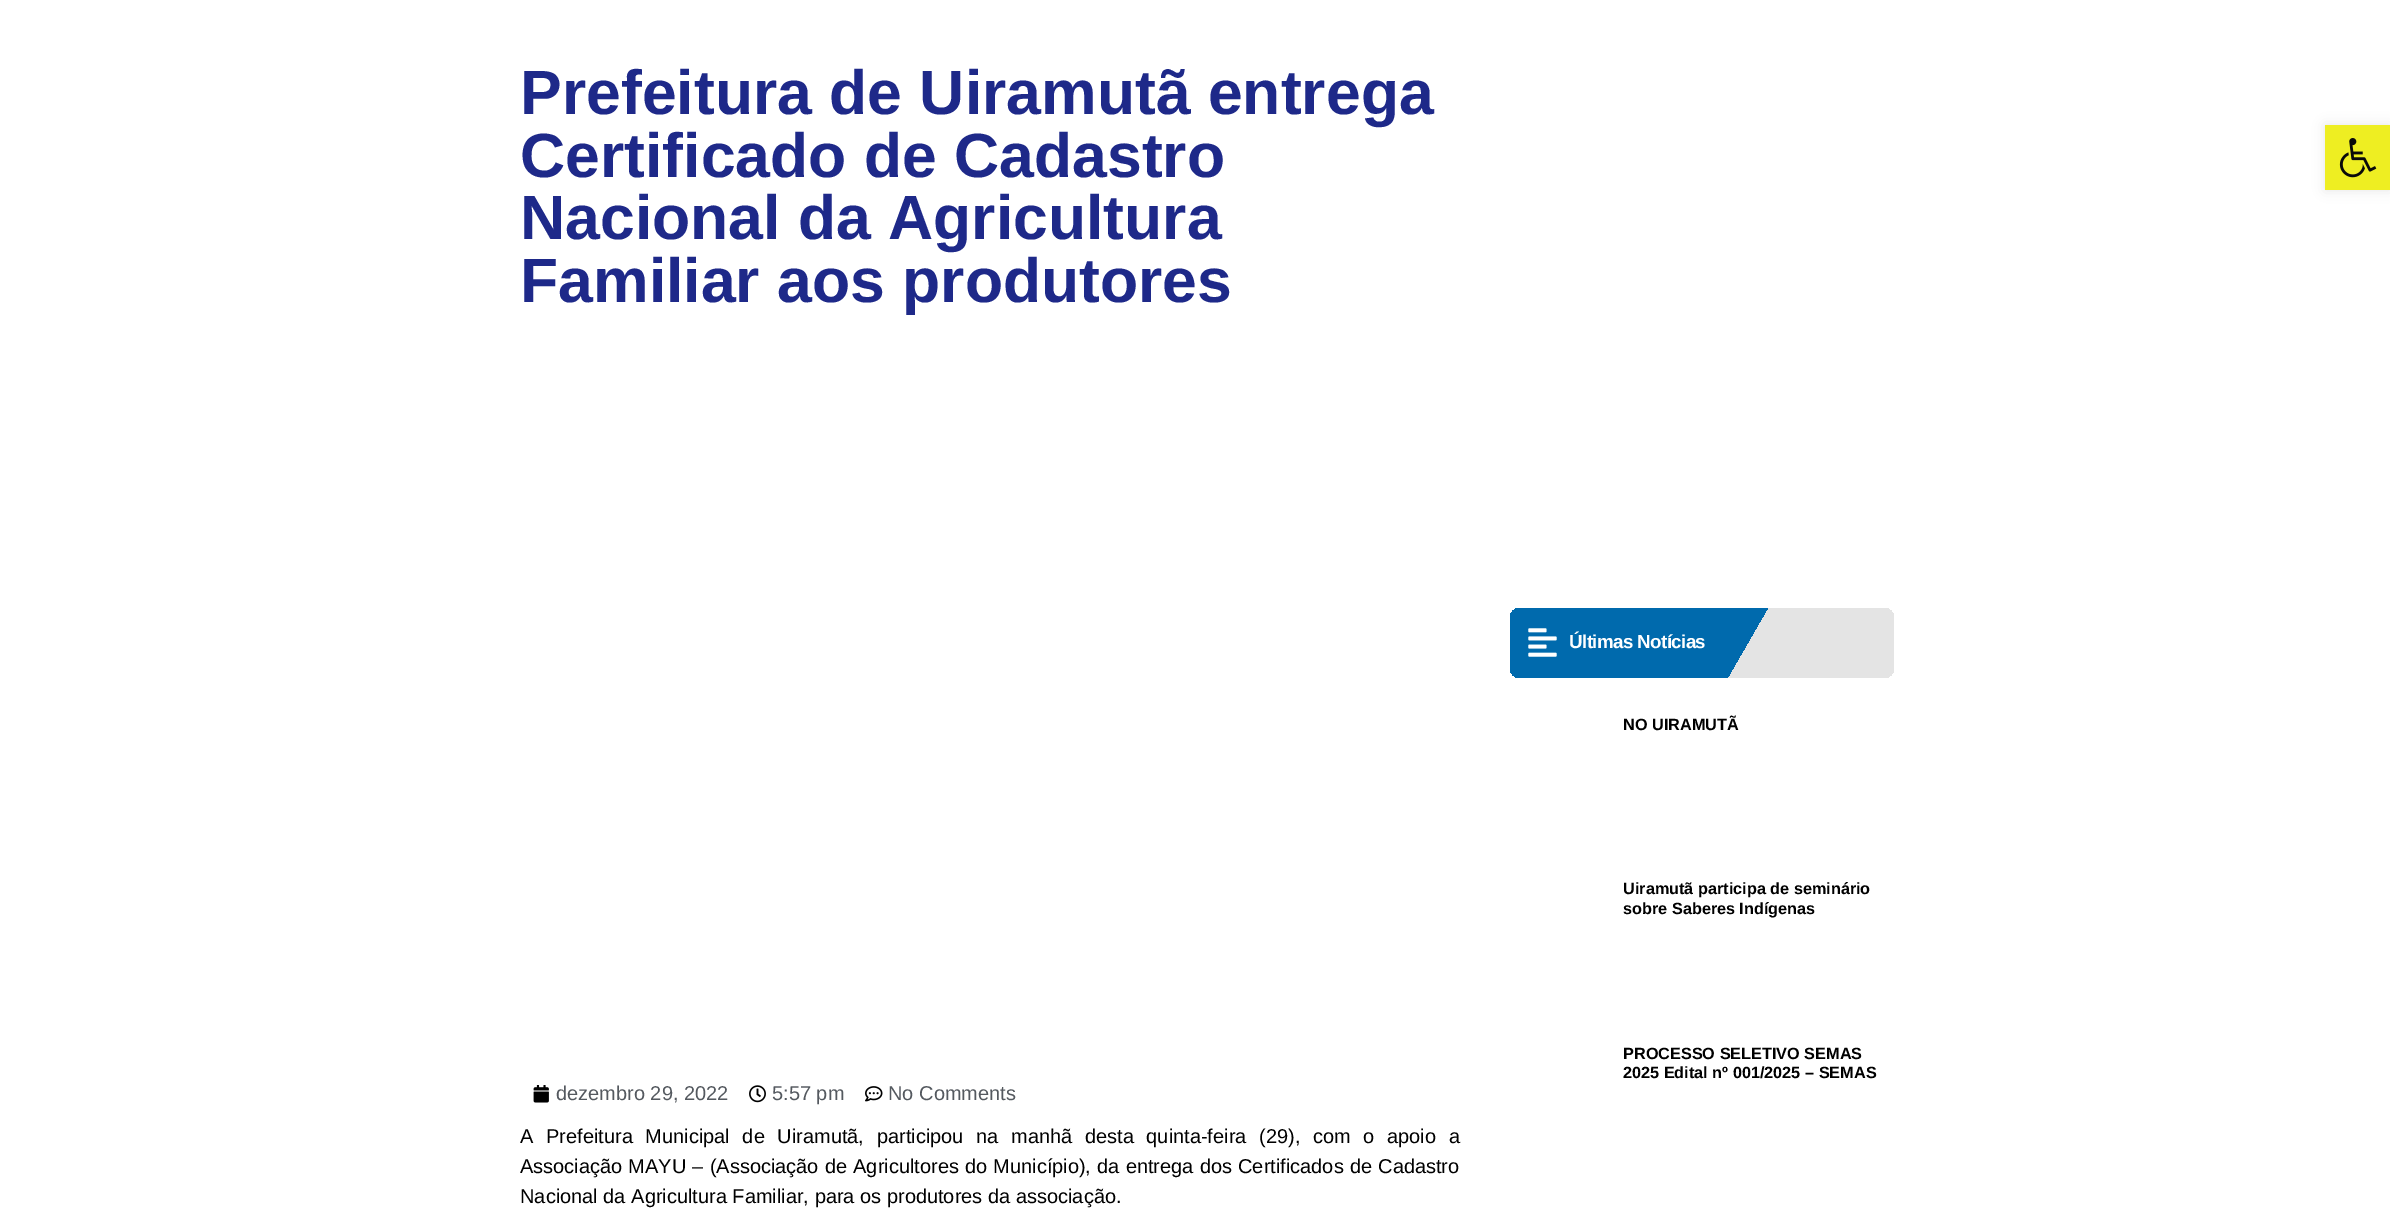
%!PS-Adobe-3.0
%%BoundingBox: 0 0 2390 1221
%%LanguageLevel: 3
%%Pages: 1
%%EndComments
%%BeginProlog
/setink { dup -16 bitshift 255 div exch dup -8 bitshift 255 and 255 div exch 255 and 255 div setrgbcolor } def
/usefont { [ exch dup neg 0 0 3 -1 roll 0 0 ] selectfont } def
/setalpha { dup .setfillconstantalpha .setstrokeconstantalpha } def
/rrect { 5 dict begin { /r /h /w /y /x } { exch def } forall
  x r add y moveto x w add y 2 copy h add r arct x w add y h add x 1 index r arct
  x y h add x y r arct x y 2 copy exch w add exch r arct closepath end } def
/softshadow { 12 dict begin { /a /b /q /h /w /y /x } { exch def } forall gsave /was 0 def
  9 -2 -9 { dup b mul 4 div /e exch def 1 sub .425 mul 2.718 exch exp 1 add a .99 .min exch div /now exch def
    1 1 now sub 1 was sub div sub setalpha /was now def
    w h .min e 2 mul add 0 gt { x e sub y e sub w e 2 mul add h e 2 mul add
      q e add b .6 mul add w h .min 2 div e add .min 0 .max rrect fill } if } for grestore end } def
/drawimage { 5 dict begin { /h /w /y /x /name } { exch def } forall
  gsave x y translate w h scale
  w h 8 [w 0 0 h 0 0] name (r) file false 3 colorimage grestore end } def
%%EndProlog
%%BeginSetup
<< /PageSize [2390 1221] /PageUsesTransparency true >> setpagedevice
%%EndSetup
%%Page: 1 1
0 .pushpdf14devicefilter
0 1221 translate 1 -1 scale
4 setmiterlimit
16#FFFFFF setink
0 0 2390 1221 rectfill
/LiberationSans-Bold 62.5 usefont
16#1E2989 setink
[
    [(Prefeitura de Uiramutã entrega) 520 114]
    [(Certificado de Cadastro) 520 177]
    [(Nacional da Agricultura) 520 239]
    [(Familiar aos produtores) 520 302]
] { aload pop moveto show } forall
(img1.raw) 533 1085 16 18 drawimage
/LiberationSans-Regular 20 usefont
16#54595F setink
556 1100 moveto (dezembro 29, 2022) show
(img2.raw) 749 1085 17 18 drawimage
772 1100 moveto (5:57 pm) show
(img3.raw) 865 1086 18 16 drawimage
888 1100 moveto (No Comments) show
16#000000 setink
520 1143 moveto 7.1 0 32 (A Prefeitura Municipal de Uiramutã, participou na manhã desta quinta-feira \(29\), com o apoio a) widthshow
520 1173 moveto 0.6 0 32 (Associação MAYU – \(Associação de Agricultores do Município\), da entrega dos Certificados de Cadastro) widthshow
520 1203 moveto (Nacional da Agricultura Familiar, para os produtores da associação.) show
gsave 1510 608 384 70 10 rrect clip newpath
<< /ShadingType 2 /ColorSpace /DeviceRGB /Coords [1861 734 1543 551] /Extend [true true] /Function << /FunctionType 3 /Domain [0 1] /Functions [<< /FunctionType 2 /Domain [0 1] /C0 [0.894 0.894 0.894] /C1 [0.894 0.894 0.894] /N 1 >> << /FunctionType 2 /Domain [0 1] /C0 [0 0.416 0.678] /C1 [0 0.416 0.678] /N 1 >>] /Bounds [0.39] /Encode [0 1 0 1] >> >> shfill grestore
(img4.raw) 1528 628 29 29 drawimage
/LiberationSans-Bold 18.75 usefont
16#FFFFFF setink
1569 648 moveto -0.6 0 (Últimas Notícias) ashow
/LiberationSans-Bold 16.25 usefont
16#000000 setink
[
    [(NO UIRAMUTÃ) 1623 730]
    [(Uiramutã participa de seminário) 1623 894]
    [(sobre Saberes Indígenas) 1623 914]
    [(PROCESSO SELETIVO SEMAS) 1623 1059]
    [(2025 Edital nº 001/2025 – SEMAS) 1623 1078]
] { aload pop moveto show } forall
2325 125 65 65 0 6 0.1 softshadow
16#EEEE22 setink
2325 125 65 65 rectfill
(img5.raw) 2339 138 38 40 drawimage
.poppdf14devicefilter showpage
%%EOF
